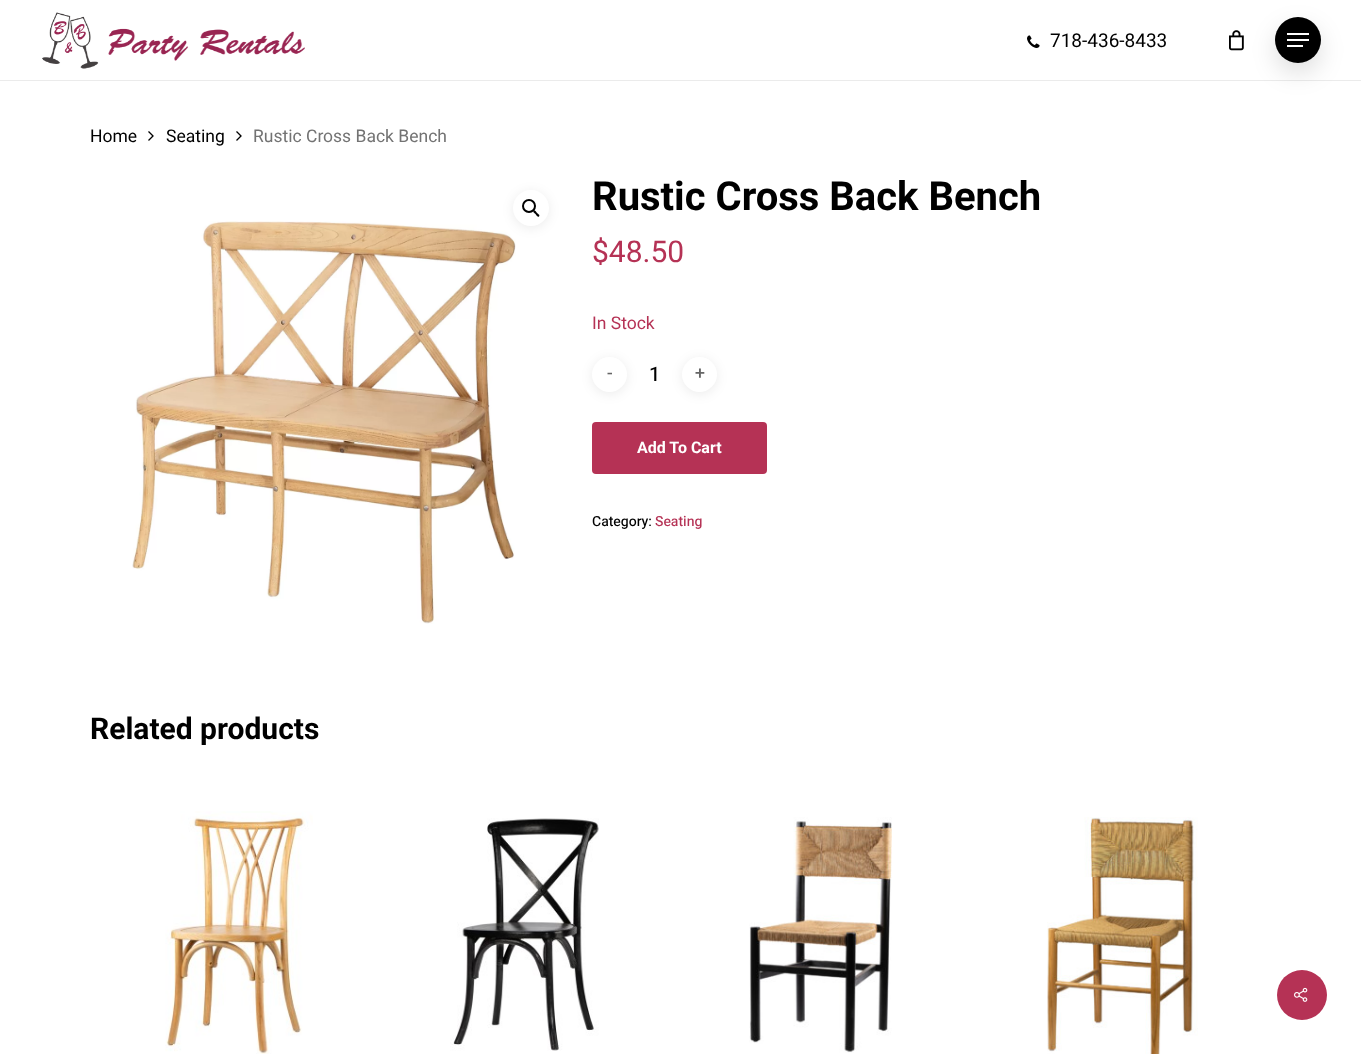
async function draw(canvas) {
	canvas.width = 1361;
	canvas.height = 1054;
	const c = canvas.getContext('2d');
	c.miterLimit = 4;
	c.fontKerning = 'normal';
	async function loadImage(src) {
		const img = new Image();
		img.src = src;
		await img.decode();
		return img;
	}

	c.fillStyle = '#fff';
	c.fillRect(0, 0, 1361, 1054);
	c.fillStyle = '#ebebeb';
	c.fillRect(0, 80, 1361, 1);
	c.drawImage(await loadImage('img1.png'), 42, 12, 263, 57);
	c.drawImage(await loadImage('img3.png'), 1229, 30, 15, 21);
	c.fillStyle = '#00000021';
	c.filter = 'blur(12.5px)';
	c.beginPath();
	c.roundRect(1275, 27, 46, 46, 23);
	c.fill();
	c.filter = 'none';
	c.fillStyle = '#000';
	c.beginPath();
	c.arc(1298, 40, 23, 0, 2 * Math.PI);
	c.fill();
	for (const [x, y, w, h, color] of [
		[1287, 33, 22, 2, '#fff'],
		[1287, 45, 16, 2, '#fff'],
		[1287, 39, 22, 2, '#fff'],
	]) {
		c.fillStyle = color;
		c.fillRect(x, y, w, h);
	}
	c.drawImage(await loadImage('img2.png'), 1027, 35, 13, 13);
	c.font = '19px Heebo';
	c.fillStyle = '#000';
	c.fillText('718-436-8433', 1050, 47);
	c.font = '17.5px Heebo';
	c.fillText('Home', 90, 142);
	c.drawImage(await loadImage('img4.png'), 148, 131, 6, 10);
	c.fillText('Seating', 166, 142);
	c.drawImage(await loadImage('img4.png'), 236, 131, 6, 10);
	c.fillStyle = '#737373';
	c.fillText('Rustic Cross Back Bench', 253, 142);
	c.drawImage(await loadImage('img5.png'), 132, 221, 384, 403);
	c.fillStyle = '#00000014';
	c.filter = 'blur(6px)';
	c.beginPath();
	c.roundRect(513, 192, 36, 36, 18);
	c.fill();
	c.filter = 'none';
	c.fillStyle = '#fff';
	c.beginPath();
	c.arc(531, 208, 18, 0, 2 * Math.PI);
	c.fill();
	c.beginPath();
	c.arc(529, 206, 6, 0, 2 * Math.PI);
	c.strokeStyle = '#000';
	c.lineWidth = 2;
	c.stroke();
	c.fillStyle = '#000';
	c.beginPath();
	c.moveTo(533.5, 210.5);
	c.bezierCurveTo(534.5, 209.5, 536.5, 212, 537, 213);
	c.bezierCurveTo(537.5, 213.5, 540.5, 215, 539, 216.5);
	c.bezierCurveTo(538, 217.5, 536, 215, 535.5, 214);
	c.bezierCurveTo(535, 213.5, 532.5, 212, 533.5, 210.5);
	c.closePath();
	c.fill();
	c.font = 'bold 40px Roboto';
	c.fillText('Rustic Cross Back Bench', 592, 210);
	c.font = '30px Heebo';
	c.fillStyle = '#b53255';
	c.fillText('$48.50', 592, 262);
	c.font = '17.5px Heebo';
	c.fillText('In Stock', 592, 329);
	c.fillStyle = '#00000014';
	c.filter = 'blur(6px)';
	c.beginPath();
	c.roundRect(592, 359, 35, 35, 17.5);
	c.fill();
	c.filter = 'none';
	c.fillStyle = '#fff';
	c.beginPath();
	c.arc(609.5, 374.5, 17.5, 0, 2 * Math.PI);
	c.fill();
	c.font = '500 18px Heebo';
	c.fillStyle = '#666';
	c.fillText('-', 607, 379);
	c.font = '500 20px Heebo';
	c.fillStyle = '#000';
	c.fillText('1', 649, 381);
	c.fillStyle = '#00000014';
	c.filter = 'blur(6px)';
	c.beginPath();
	c.roundRect(682, 359, 35, 35, 17.5);
	c.fill();
	c.filter = 'none';
	c.fillStyle = '#fff';
	c.beginPath();
	c.arc(699.5, 374.5, 17.5, 0, 2 * Math.PI);
	c.fill();
	c.font = '500 18px Heebo';
	c.fillStyle = '#666';
	c.fillText('+', 695, 379);
	c.fillStyle = '#b53255';
	c.beginPath();
	c.roundRect(592, 422, 175, 52, 4);
	c.fill();
	c.font = 'bold 16px Roboto';
	c.fillStyle = '#fff';
	c.fillText('Add To Cart', 637, 453);
	c.font = '500 14px Heebo';
	c.fillStyle = '#000';
	c.fillText('Category:', 592, 526);
	c.fillStyle = '#b53255';
	c.fillText('Seating', 655, 526);
	c.font = 'bold 30px Roboto';
	c.fillStyle = '#000';
	c.fillText('Related products', 90, 739);
	c.drawImage(await loadImage('img6.png'), 165, 811, 148, 243);
	c.drawImage(await loadImage('img7.png'), 450, 818, 149, 233);
	c.drawImage(await loadImage('img8.png'), 749, 817, 143, 236);
	c.drawImage(await loadImage('img9.png'), 1047, 817, 151, 237);
	c.fillStyle = '#b53255';
	c.beginPath();
	c.arc(1302, 995, 25, 0, 2 * Math.PI);
	c.fill();
	c.drawImage(await loadImage('img10.png'), 1294, 987, 14, 15);
}

draw(document.querySelector('canvas'));
